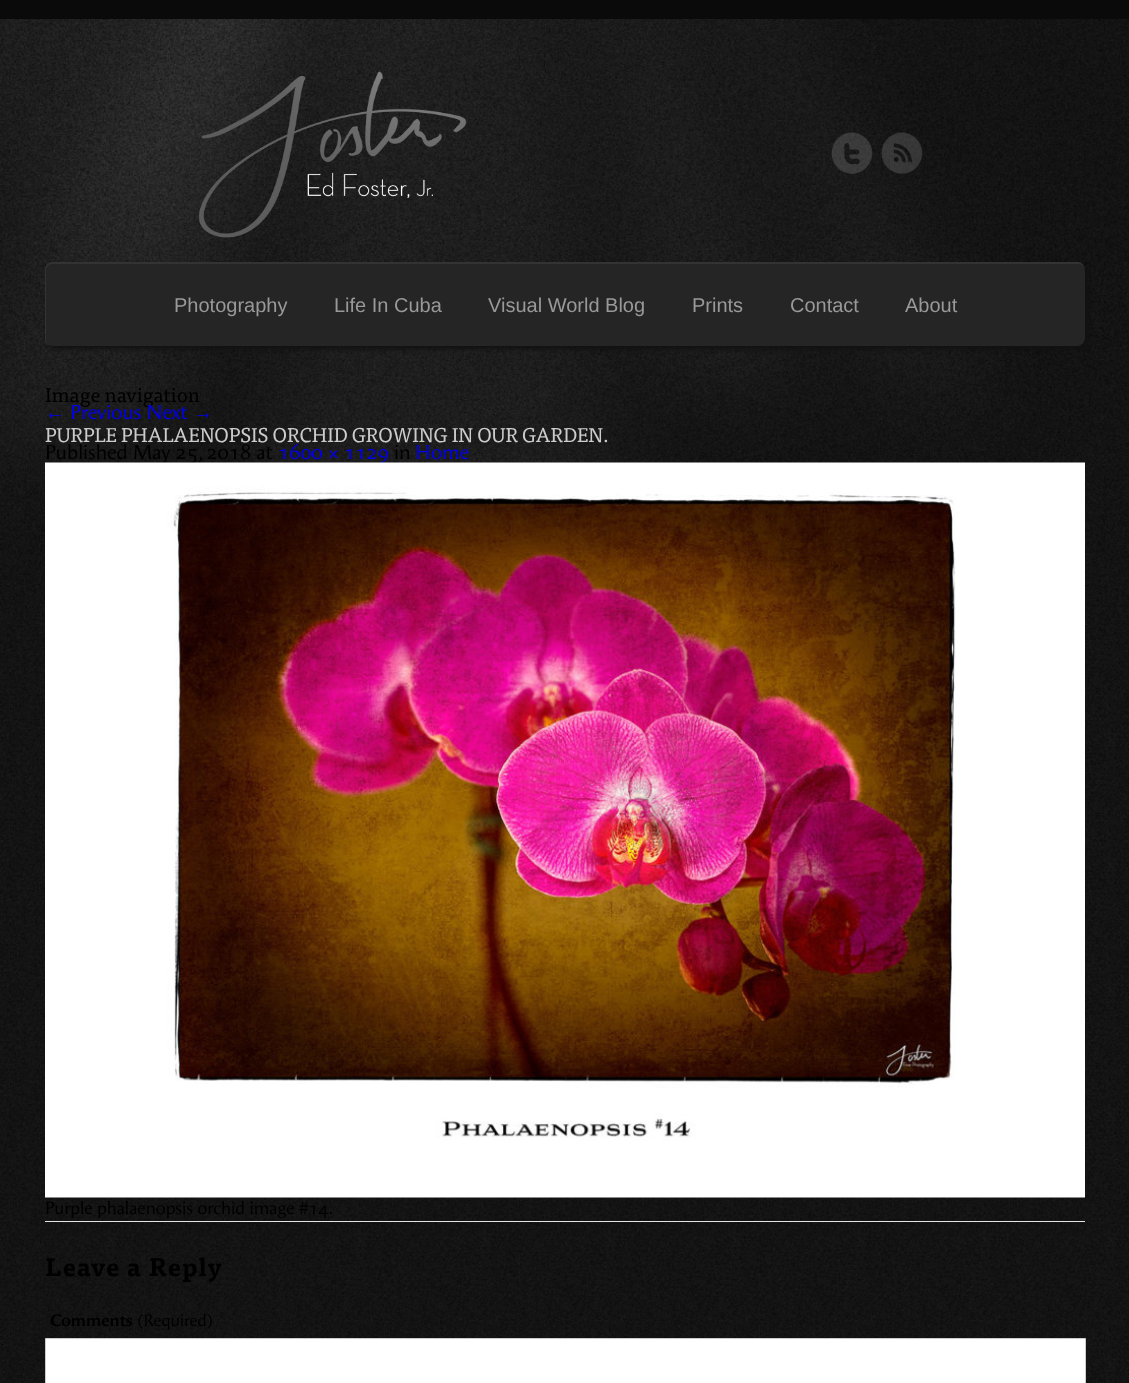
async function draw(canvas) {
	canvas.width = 1129;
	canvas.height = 1383;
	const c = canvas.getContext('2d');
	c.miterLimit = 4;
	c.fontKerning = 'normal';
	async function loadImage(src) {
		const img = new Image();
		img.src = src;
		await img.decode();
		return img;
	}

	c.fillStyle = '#fff';
	c.fillRect(0, 0, 1129, 1383);
	c.drawImage(await loadImage('img1.png'), 0, 19, 1129, 1364);
	c.fillStyle = '#0a0a0a';
	c.fillRect(0, 0, 1129, 19);
	c.drawImage(await loadImage('img2.png'), 831, 132, 42, 42);
	c.drawImage(await loadImage('img3.png'), 881, 132, 42, 42);
	c.drawImage(await loadImage('img4.png'), 198, 71, 269, 167);
	c.fillStyle = '#111';
	c.filter = 'blur(2px)';
	c.beginPath();
	c.roundRect(48, 265, 1040, 84, 8);
	c.fill();
	c.filter = 'none';
	c.fillStyle = '#252525';
	c.beginPath();
	c.roundRect(45, 263, 1040, 83, 8);
	c.fill();
	c.fillStyle = '#333';
	c.beginPath();
	c.moveTo(52, 262);
	c.lineTo(1078, 262);
	c.bezierCurveTo(1082, 262, 1085, 266, 1085, 270);
	c.lineTo(1085, 339);
	c.bezierCurveTo(1085, 343, 1082, 346, 1078, 346);
	c.lineTo(52, 346);
	c.bezierCurveTo(48, 346, 45, 343, 45, 339);
	c.lineTo(45, 270);
	c.bezierCurveTo(45, 266, 48, 262, 52, 262);
	c.closePath();
	c.moveTo(52, 264);
	c.lineTo(1078, 264);
	c.bezierCurveTo(1082, 264, 1085, 267, 1085, 270);
	c.lineTo(1085, 339);
	c.bezierCurveTo(1085, 343, 1082, 346, 1078, 346);
	c.lineTo(52, 346);
	c.bezierCurveTo(49, 346, 46, 343, 46, 339);
	c.lineTo(46, 270);
	c.bezierCurveTo(46, 267, 49, 264, 52, 264);
	c.closePath();
	c.fill('evenodd');
	c.font = '20px Liberation Sans';
	c.fillStyle = '#999';
	for (const [text, x, y] of [
		['Photography', 174, 312],
		['Life In Cuba', 334, 312],
		['Visual World Blog', 488, 312],
		['Prints', 692, 312],
		['Contact', 790, 312],
		['About', 905, 312],
	]) {
		c.fillText(text, x, y);
	}
	c.font = '20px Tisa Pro';
	c.fillStyle = '#000';
	c.fillText('Image navigation', 45, 402);
	c.font = '20px Liberation Sans';
	c.fillStyle = '#00e';
	c.fillText('←', 45, 419);
	c.font = '20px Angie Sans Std';
	c.fillText('Previous Next', 70, 419);
	c.font = '20px Liberation Sans';
	c.fillText('→', 193, 419);
	c.font = '20px Tisa Pro';
	c.fillStyle = '#ccc';
	c.fillText('PURPLE PHALAENOPSIS ORCHID GROWING IN OUR GARDEN.', 45, 442);
	c.font = '20px Angie Sans Std';
	c.fillStyle = '#000';
	c.fillText('Published May 25, 2018 at', 45, 459);
	c.fillStyle = '#00e';
	c.fillText('1600 × 1129', 278, 459);
	c.fillStyle = '#000';
	c.fillText('in', 394, 459);
	c.fillStyle = '#00e';
	c.fillText('Home', 415, 459);
	c.drawImage(await loadImage('img5.png'), 45, 462, 1040, 736);
	c.font = '17.5px Angie Sans Std';
	c.fillStyle = '#000';
	c.fillText('Purple phalaenopsis orchid image #14.', 45, 1214);
	c.fillStyle = '#e5e5e5';
	c.fillRect(45, 1221, 1040, 1);
	c.letterSpacing = '1.25px';
	c.font = 'bold 25px Tisa Pro';
	c.fillStyle = '#000';
	c.fillText('Leave a Reply', 45, 1276);
	c.letterSpacing = '0px';
	c.font = 'bold 16.5px Angie Sans Std';
	c.fillText('Comments', 50, 1326);
	c.font = '16.5px Angie Sans Std';
	c.fillText('(Required)', 137, 1326);
	c.fillStyle = '#fff';
	c.beginPath();
	c.rect(45.5, 1338.5, 1040, 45);
	c.fill();
	c.strokeStyle = '#ccc';
	c.stroke();
}

draw(document.querySelector('canvas'));
